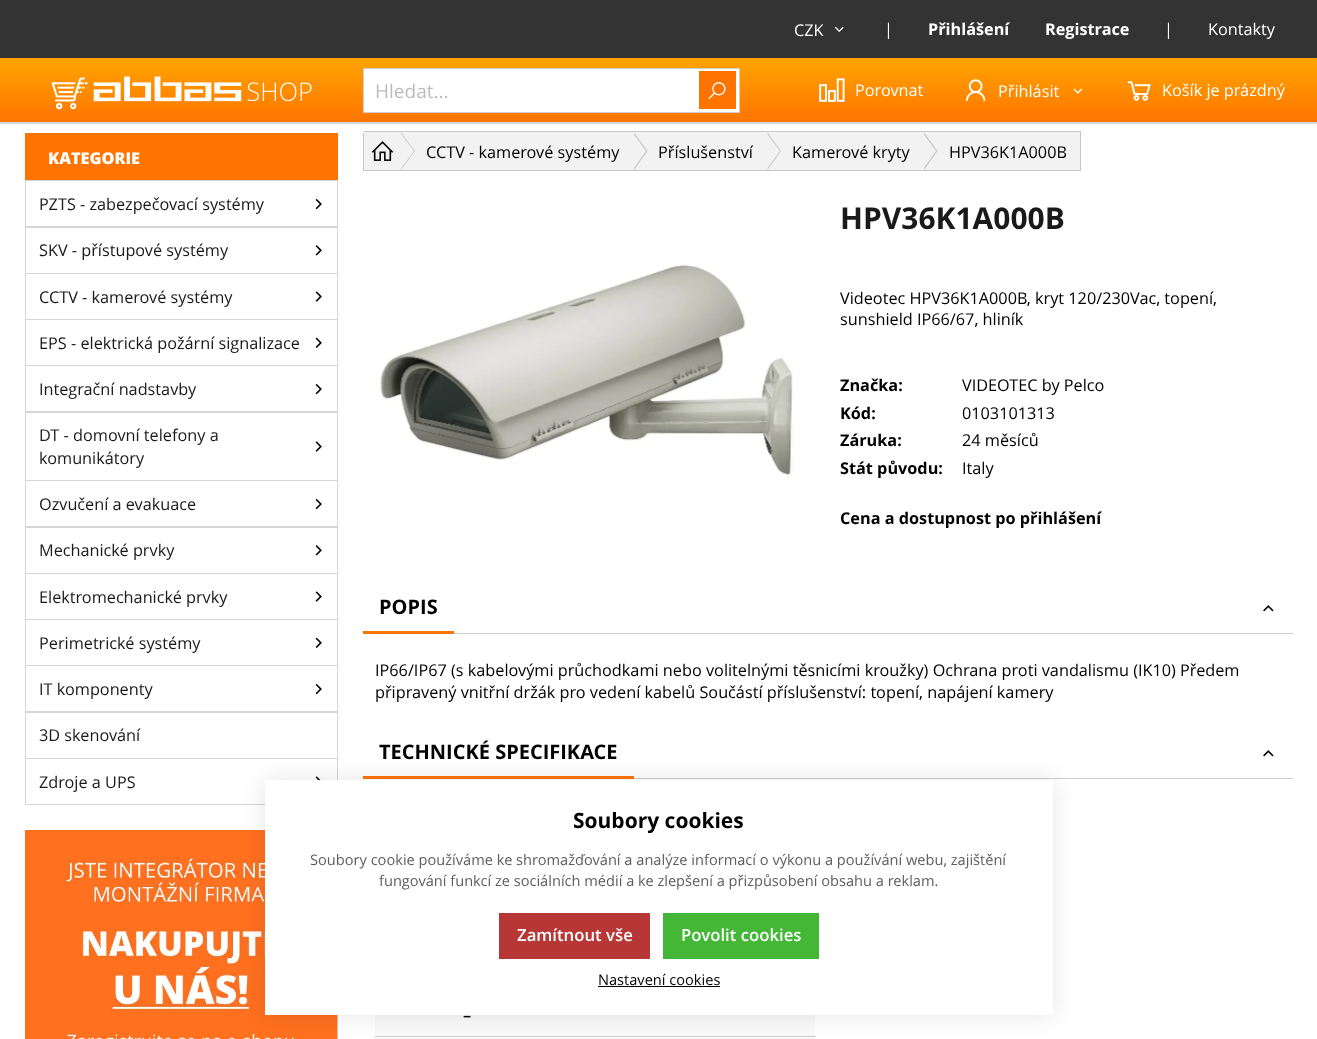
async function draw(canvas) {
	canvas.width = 1317;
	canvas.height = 1039;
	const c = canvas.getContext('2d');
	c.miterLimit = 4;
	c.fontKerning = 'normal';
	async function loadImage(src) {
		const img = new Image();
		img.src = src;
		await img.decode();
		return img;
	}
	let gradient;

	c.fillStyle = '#fff';
	c.fillRect(0, 0, 1317, 1039);
	gradient = c.createLinearGradient(659, 0, 659, 123);
	gradient.addColorStop(0, '#ffa200');
	gradient.addColorStop(0.5, '#ffa200');
	gradient.addColorStop(1, '#ff7400');
	c.fillStyle = gradient;
	c.fillRect(0, 58, 1317, 64);
	c.fillStyle = '#333';
	c.fillRect(0, 0, 1317, 58);
	c.font = '16.25px Open Sans';
	c.fillStyle = '#fff';
	c.fillText('CZK', 794, 36);
	c.drawImage(await loadImage('img1.png'), 834, 26, 10, 6);
	c.fillText('|', 884, 35);
	c.font = 'bold 16.25px Open Sans';
	c.fillText('Přihlášení', 928, 35);
	c.fillText('Registrace', 1045, 35);
	c.font = '16.25px Open Sans';
	c.fillText('|', 1164, 35);
	c.fillText('Kontakty', 1208, 35);
	c.drawImage(await loadImage('img2.png'), 51, 76, 261, 34);
	c.beginPath();
	c.rect(363.5, 68.5, 376, 44);
	c.fill();
	c.strokeStyle = '#cecece';
	c.stroke();
	c.font = '19px Open Sans';
	c.fillStyle = '#bcbcbc';
	c.fillText('Hledat...', 375, 98);
	c.fillStyle = '#ff7400';
	c.fillRect(699, 71, 37, 38);
	c.drawImage(await loadImage('img3.png'), 708, 82, 18, 17);
	c.drawImage(await loadImage('img4.png'), 819, 78, 26, 24);
	c.font = '16.25px Open Sans';
	c.fillStyle = '#fff';
	c.fillText('Porovnat', 855, 96);
	c.drawImage(await loadImage('img5.png'), 965, 79, 21, 22);
	c.fillText('Přihlásit', 998, 97);
	c.drawImage(await loadImage('img6.png'), 1073, 88, 10, 6);
	c.drawImage(await loadImage('img7.png'), 1127, 81, 24, 20);
	c.fillText('Košík je prázdný', 1162, 96);
	c.fillStyle = '#d6d6d6';
	c.beginPath();
	c.moveTo(0, 122);
	c.lineTo(0, 124);
	c.lineTo(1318, 124);
	c.lineTo(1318, 1);
	c.lineTo(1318, 122);
	c.closePath();
	c.fill();
	c.fillStyle = '#ff7400';
	c.fillRect(25, 133, 313, 47);
	c.font = '800 16.25px Open Sans';
	c.fillStyle = '#fff';
	c.fillText('KATEGORIE', 48, 164);
	c.strokeStyle = '#d6d6d6';
	c.strokeRect(25.5, 180.5, 312, 47);
	c.font = '16.25px Open Sans';
	c.fillStyle = '#1a1a1a';
	c.fillText('PZTS - zabezpečovací systémy', 39, 210);
	c.drawImage(await loadImage('img8.png'), 315, 198, 7, 12);
	c.strokeRect(25.5, 226.5, 312, 47);
	c.fillText('SKV - přístupové systémy', 39, 256);
	c.drawImage(await loadImage('img9.png'), 315, 245, 7, 11);
	c.strokeRect(25.5, 273.5, 312, 46);
	c.fillText('CCTV - kamerové systémy', 39, 303);
	c.drawImage(await loadImage('img10.png'), 315, 291, 7, 11);
	c.strokeRect(25.5, 319.5, 312, 46);
	c.fillText('EPS - elektrická požární signalizace', 39, 349);
	c.drawImage(await loadImage('img11.png'), 315, 337, 7, 11);
	c.strokeRect(25.5, 365.5, 312, 47);
	c.fillText('Integrační nadstavby', 39, 395);
	c.drawImage(await loadImage('img8.png'), 315, 383, 7, 12);
	c.strokeRect(25.5, 411.5, 312, 69);
	c.fillText('DT - domovní telefony a', 39, 441);
	c.fillText('komunikátory', 39, 464);
	c.drawImage(await loadImage('img10.png'), 315, 441, 7, 11);
	c.strokeRect(25.5, 480.5, 312, 47);
	c.fillText('Ozvučení a evakuace', 39, 510);
	c.drawImage(await loadImage('img8.png'), 315, 498, 7, 12);
	c.strokeRect(25.5, 526.5, 312, 47);
	c.fillText('Mechanické prvky', 39, 556);
	c.drawImage(await loadImage('img9.png'), 315, 545, 7, 11);
	c.strokeRect(25.5, 573.5, 312, 46);
	c.fillText('Elektromechanické prvky', 39, 603);
	c.drawImage(await loadImage('img10.png'), 315, 591, 7, 11);
	c.strokeRect(25.5, 619.5, 312, 46);
	c.fillText('Perimetrické systémy', 39, 649);
	c.drawImage(await loadImage('img11.png'), 315, 637, 7, 11);
	c.strokeRect(25.5, 665.5, 312, 47);
	c.fillText('IT komponenty', 39, 695);
	c.drawImage(await loadImage('img8.png'), 315, 683, 7, 12);
	c.strokeRect(25.5, 711.5, 312, 47);
	c.fillText('3D skenování', 39, 741);
	c.strokeRect(25.5, 758.5, 312, 46);
	c.fillText('Zdroje a UPS', 39, 788);
	c.drawImage(await loadImage('img12.png'), 315, 776, 6, 4);
	c.drawImage(await loadImage('img13.png'), 25, 830, 313, 209);
	for (const [x, y, w, h, color] of [
		[363, 133, 1, 38, '#c7c7c7'],
		[364, 132, 716, 38, '#f2f2f2'],
		[364, 131, 717, 1, '#c7c7c7'],
		[364, 170, 560, 1, '#c7c7c7'],
	]) {
		c.fillStyle = color;
		c.fillRect(x, y, w, h);
	}
	c.beginPath();
	c.moveTo(401, 170);
	c.lineTo(401, 132.5);
	c.lineTo(415, 151);
	c.closePath();
	c.fill();
	c.fillStyle = '#f2f2f2';
	c.beginPath();
	c.moveTo(400, 170);
	c.lineTo(400, 132.5);
	c.lineTo(414, 151);
	c.closePath();
	c.fill();
	c.drawImage(await loadImage('img14.png'), 371, 141, 23, 20);
	c.fillStyle = '#c7c7c7';
	c.beginPath();
	c.moveTo(634, 170);
	c.lineTo(634, 132.5);
	c.lineTo(647.5, 151);
	c.closePath();
	c.fill();
	c.fillStyle = '#f2f2f2';
	c.beginPath();
	c.moveTo(632.5, 170);
	c.lineTo(632.5, 132.5);
	c.lineTo(646, 151);
	c.closePath();
	c.fill();
	c.fillStyle = '#000';
	c.fillText('CCTV - kamerové systémy', 426, 158);
	c.fillStyle = '#c7c7c7';
	c.beginPath();
	c.moveTo(767.5, 170);
	c.lineTo(767.5, 132.5);
	c.lineTo(781, 151);
	c.closePath();
	c.fill();
	c.fillStyle = '#f2f2f2';
	c.beginPath();
	c.moveTo(766, 170);
	c.lineTo(766, 132.5);
	c.lineTo(780, 151);
	c.closePath();
	c.fill();
	c.fillStyle = '#000';
	c.fillText('Příslušenství', 658, 158);
	c.fillStyle = '#c7c7c7';
	c.beginPath();
	c.moveTo(924, 170);
	c.lineTo(924, 132.5);
	c.lineTo(937.5, 151);
	c.closePath();
	c.fill();
	c.fillStyle = '#f2f2f2';
	c.beginPath();
	c.moveTo(922.5, 170);
	c.lineTo(922.5, 132.5);
	c.lineTo(936, 151);
	c.closePath();
	c.fill();
	c.fillStyle = '#000';
	c.fillText('Kamerové kryty', 792, 158);
	c.fillStyle = '#c7c7c7';
	c.fillRect(1080, 131, 1, 40);
	c.fillRect(924, 170, 157, 1);
	c.fillStyle = '#000';
	c.fillText('HPV36K1A000B', 949, 158);
	c.drawImage(await loadImage('img15.png'), 380, 264, 415, 211);
	c.font = 'bold 30px Open Sans';
	c.fillStyle = '#1a1a1a';
	c.fillText('HPV36K1A000B', 840, 229);
	c.font = '16.25px Open Sans';
	c.fillStyle = '#000';
	c.fillText('Videotec HPV36K1A000B, kryt 120/230Vac, topení,', 840, 304);
	c.fillText('sunshield IP66/67, hliník', 840, 325);
	c.font = 'bold 16.25px Open Sans';
	c.fillText('Značka:', 840, 391);
	c.font = '16.25px Open Sans';
	c.fillText('VIDEOTEC by Pelco', 962, 391);
	c.font = 'bold 16.25px Open Sans';
	c.fillText('Kód:', 840, 419);
	c.font = '16.25px Open Sans';
	c.fillText('0103101313', 962, 419);
	c.font = 'bold 16.25px Open Sans';
	c.fillText('Záruka:', 840, 446);
	c.font = '16.25px Open Sans';
	c.fillText('24 měsíců', 962, 446);
	c.font = 'bold 16.25px Open Sans';
	c.fillText('Stát původu:', 840, 474);
	c.font = '16.25px Open Sans';
	c.fillText('Italy', 962, 474);
	c.font = 'bold 16.25px Open Sans';
	c.fillText('Cena a dostupnost po přihlášení', 840, 524);
	c.fillStyle = '#cecece';
	c.fillRect(454, 633, 839, 1);
	c.fillStyle = '#ff7400';
	c.fillRect(363, 631, 91, 3);
	c.font = 'bold 20px Open Sans';
	c.fillStyle = '#000';
	c.fillText('POPIS', 379, 614);
	c.drawImage(await loadImage('img16.png'), 1263, 605, 11, 7);
	c.font = '16.25px Open Sans';
	c.fillText('IP66/IP67 (s kabelovými průchodkami nebo volitelnými těsnicími kroužky) Ochrana proti vandalismu (IK10) Předem', 375, 676);
	c.fillText('připravený vnitřní držák pro vedení kabelů Součástí příslušenství: topení, napájení kamery', 375, 698);
	c.fillStyle = '#cecece';
	c.fillRect(634, 778, 659, 1);
	c.fillStyle = '#ff7400';
	c.fillRect(363, 776, 271, 3);
	c.font = 'bold 20px Open Sans';
	c.fillStyle = '#000';
	c.fillText('TECHNICKÉ SPECIFIKACE', 379, 759);
	c.drawImage(await loadImage('img16.png'), 1263, 750, 11, 7);
	c.fillStyle = '#f9f9f9';
	c.fillRect(375, 1015, 440, 21);
	c.font = '600 16.25px Open Sans';
	c.fillStyle = '#000';
	c.fillText('–', 463, 1021);
	c.fillStyle = '#ccc';
	c.fillRect(375, 1036, 441, 1);
	c.fillStyle = '#f9f9f9';
	c.fillRect(375, 1037, 440, 2);
	c.fillStyle = '#0000001a';
	c.filter = 'blur(12.5px)';
	c.beginPath();
	c.rect(265, 780, 788, 235);
	c.fill();
	c.filter = 'none';
	c.fillStyle = '#fff';
	c.fillRect(265, 780, 788, 235);
	c.font = 'bold 21px Open Sans';
	c.fillStyle = '#000';
	c.fillText('Soubory cookies', 573, 828);
	c.font = '14.6px Open Sans';
	c.fillStyle = '#5e5e5e';
	c.fillText('Soubory cookie používáme ke shromažďování a analýze informací o výkonu a používání webu, zajištění', 310, 865);
	c.fillText('fungování funkcí ze sociálních médií a ke zlepšení a přizpůsobení obsahu a reklam.', 379, 886);
	c.fillStyle = '#b73636';
	c.fillRect(499, 913, 151, 46);
	c.font = '600 16.75px Open Sans';
	c.fillStyle = '#fff';
	c.fillText('Zamítnout vše', 517, 941);
	c.fillStyle = '#44b736';
	c.fillRect(663, 913, 156, 46);
	c.fillStyle = '#fff';
	c.fillText('Povolit cookies', 681, 941);
	c.font = '14.6px Open Sans';
	c.fillStyle = '#000';
	c.fillText('Nastavení cookies', 598, 985);
	c.fillRect(598, 986, 122, 1);
}

draw(document.querySelector('canvas'));
